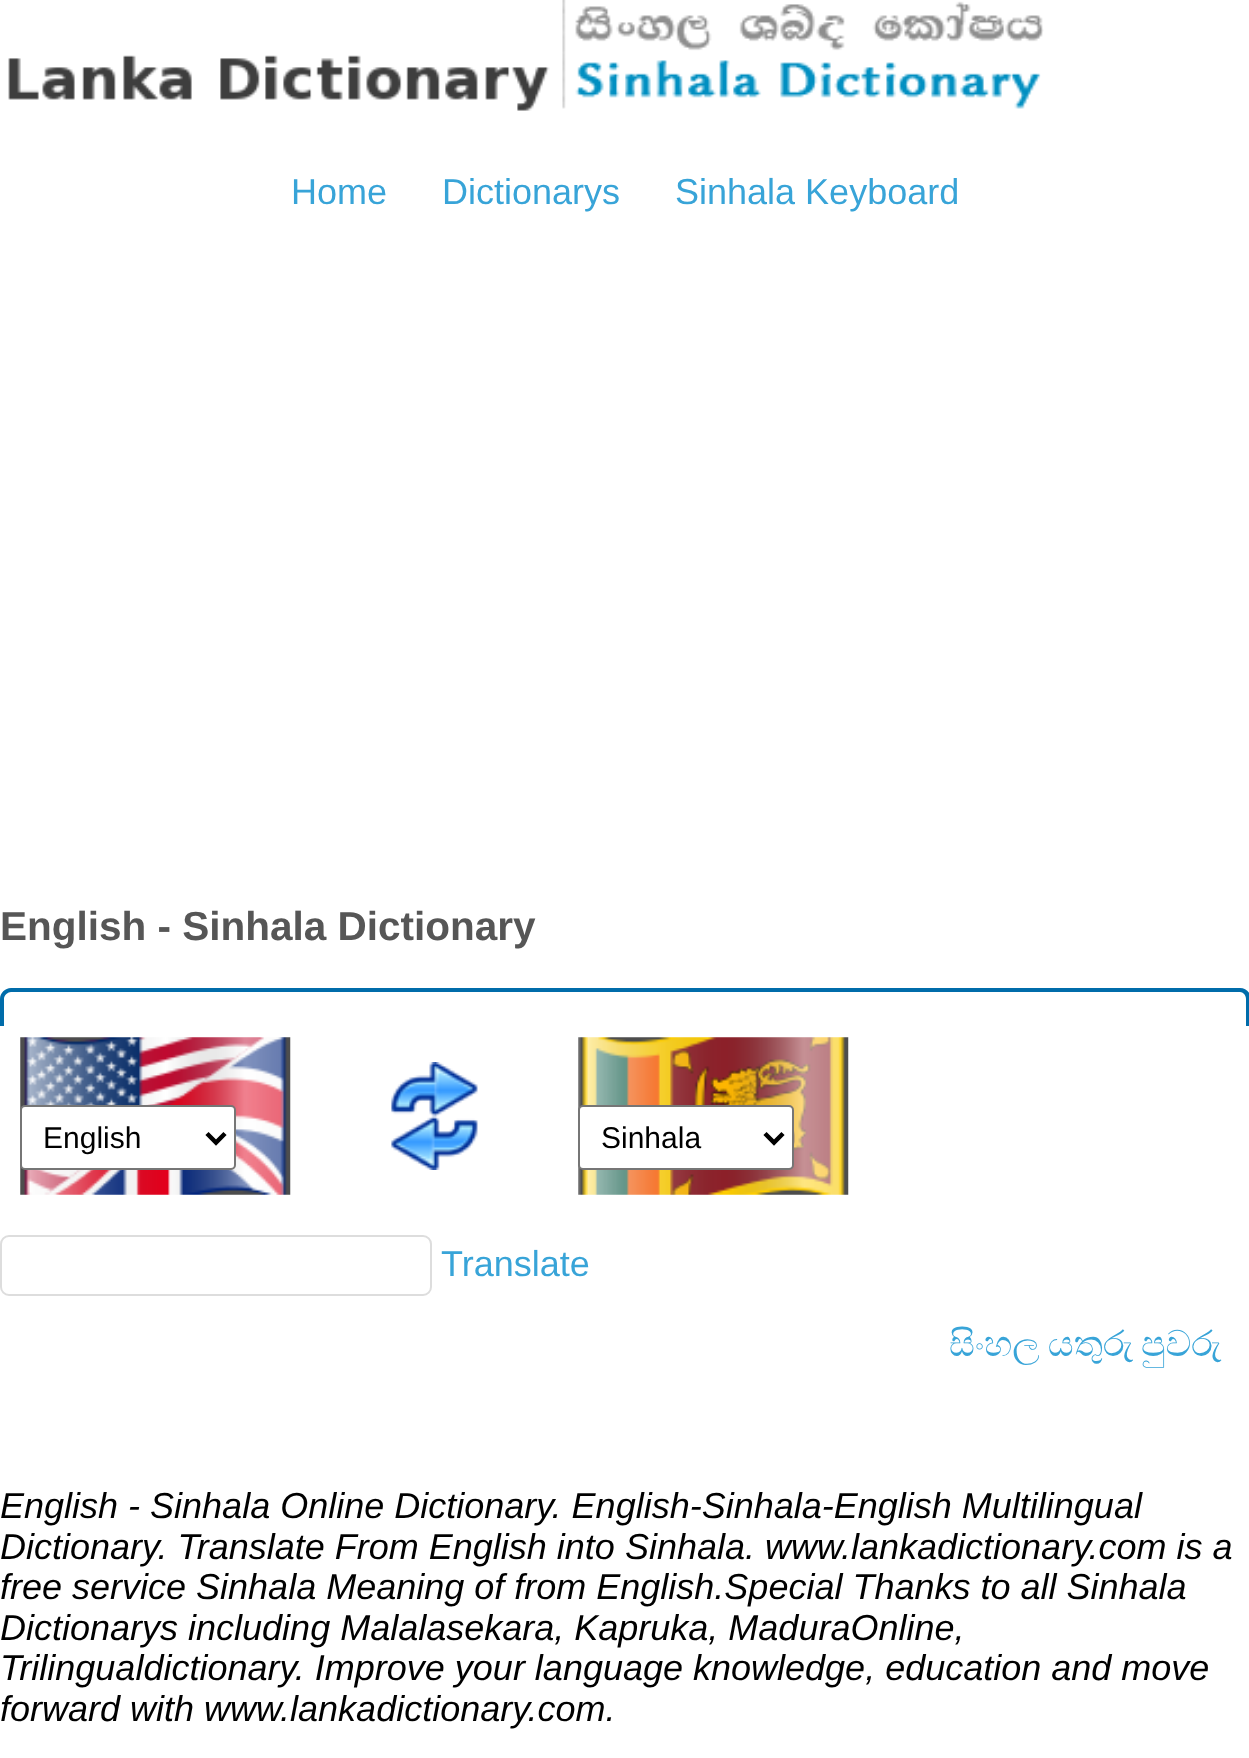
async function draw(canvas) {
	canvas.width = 1249;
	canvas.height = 1758;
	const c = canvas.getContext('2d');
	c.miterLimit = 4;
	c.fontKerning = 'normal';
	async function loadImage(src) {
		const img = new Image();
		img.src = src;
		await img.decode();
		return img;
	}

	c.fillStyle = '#fff';
	c.fillRect(0, 0, 1249, 1758);
	c.drawImage(await loadImage('img1.png'), 8, 0, 1036, 111);
	c.font = '36px Liberation Sans';
	c.fillStyle = '#38a4d8';
	for (const [text, x, y] of [
		['Home', 291, 204],
		['Dictionarys', 442, 204],
		['Sinhala Keyboard', 675, 204],
	]) {
		c.fillText(text, x, y);
	}
	c.font = 'bold 40.5px Liberation Sans';
	c.fillStyle = '#565656';
	c.fillText('English - Sinhala Dictionary', 0, 940);
	c.fillStyle = '#006caa';
	c.beginPath();
	c.moveTo(11, 988);
	c.lineTo(1240, 988);
	c.bezierCurveTo(1246, 988, 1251, 993, 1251, 999);
	c.lineTo(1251, 1026);
	c.lineTo(0, 1026);
	c.lineTo(0, 999);
	c.bezierCurveTo(0, 993, 5, 988, 11, 988);
	c.closePath();
	c.moveTo(11, 992);
	c.lineTo(1240, 992);
	c.bezierCurveTo(1243, 992, 1246, 995, 1246, 999);
	c.lineTo(1246, 1026);
	c.lineTo(4, 1026);
	c.lineTo(4, 999);
	c.bezierCurveTo(4, 995, 8, 992, 11, 992);
	c.closePath();
	c.fill('evenodd');
	c.drawImage(await loadImage('img2.png'), 20, 1037, 271, 158);
	c.fillStyle = '#fff';
	c.beginPath();
	c.roundRect(21, 1106, 214, 63, 4);
	c.fill();
	c.strokeStyle = '#767676';
	c.lineWidth = 2;
	c.stroke();
	c.beginPath();
	c.moveTo(207, 1133.5);
	c.lineTo(216, 1142.5);
	c.lineTo(225, 1133.5);
	c.strokeStyle = '#000';
	c.lineWidth = 4.5;
	c.stroke();
	c.font = '30px Liberation Sans';
	c.fillStyle = '#000';
	c.fillText('English', 43, 1148);
	c.drawImage(await loadImage('img3.png'), 391, 1062, 87, 108);
	c.drawImage(await loadImage('img4.png'), 578, 1037, 271, 158);
	c.fillStyle = '#fff';
	c.beginPath();
	c.roundRect(579, 1106, 214, 63, 4);
	c.fill();
	c.strokeStyle = '#767676';
	c.lineWidth = 2;
	c.stroke();
	c.beginPath();
	c.moveTo(765, 1133.5);
	c.lineTo(774, 1142.5);
	c.lineTo(783, 1133.5);
	c.strokeStyle = '#000';
	c.lineWidth = 4.5;
	c.stroke();
	c.fillStyle = '#000';
	c.fillText('Sinhala', 601, 1148);
	c.beginPath();
	c.roundRect(1, 1236, 430, 59, 8);
	c.strokeStyle = '#ddd';
	c.lineWidth = 2;
	c.stroke();
	c.font = '36px Liberation Sans';
	c.fillStyle = '#38a4d8';
	c.fillText('Translate', 441, 1276);
	c.wordSpacing = '-1px';
	c.font = '36px FreeSerif';
	c.fillText('සිංහල යතුරු පුවරු', 949, 1356);
	c.wordSpacing = '0px';
	c.font = 'italic 36px Liberation Sans';
	c.fillStyle = '#000';
	for (const [text, x, y] of [
		['English - Sinhala Online Dictionary. English-Sinhala-English Multilingual', 0, 1518],
		['Dictionary. Translate From English into Sinhala. www.lankadictionary.com is a', 0, 1559],
		['free service Sinhala Meaning of from English.Special Thanks to all Sinhala', 0, 1599],
		['Dictionarys including Malalasekara, Kapruka, MaduraOnline,', 0, 1640],
		['Trilingualdictionary. Improve your language knowledge, education and move', 0, 1680],
		['forward with www.lankadictionary.com.', 0, 1721],
	]) {
		c.fillText(text, x, y);
	}
}

draw(document.querySelector('canvas'));
